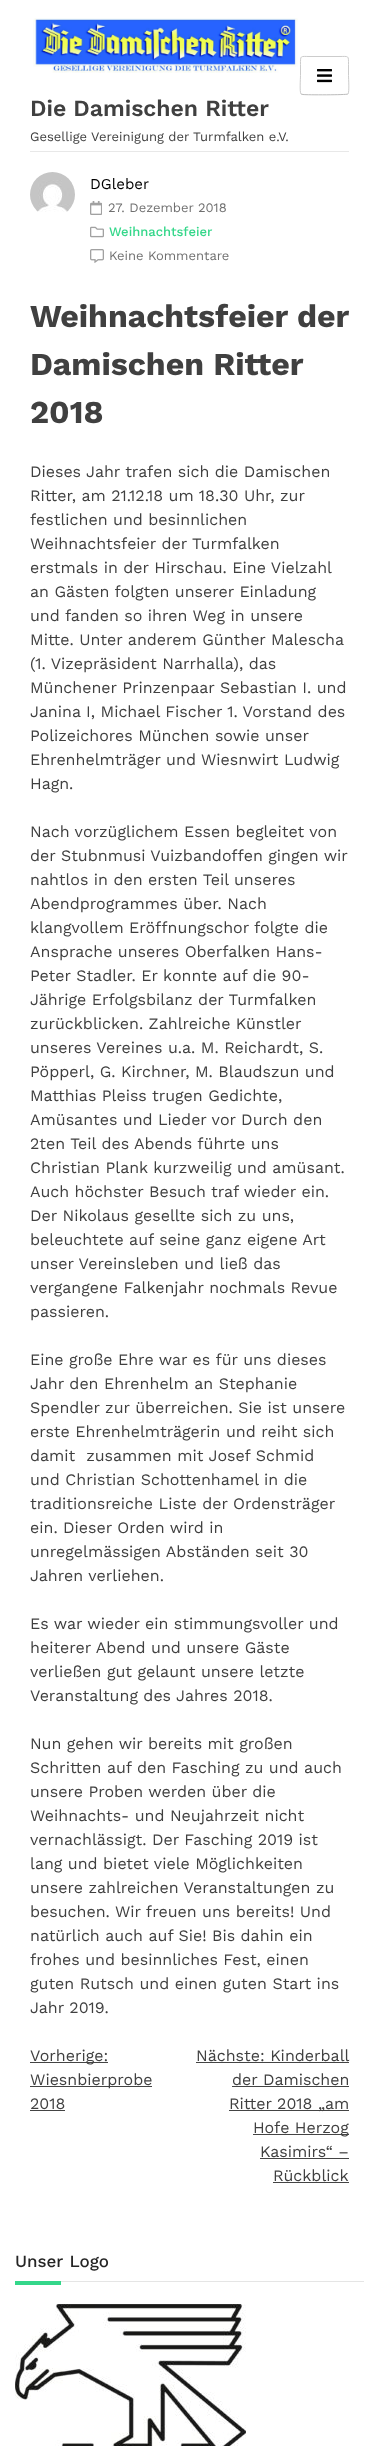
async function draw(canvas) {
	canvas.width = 379;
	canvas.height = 2446;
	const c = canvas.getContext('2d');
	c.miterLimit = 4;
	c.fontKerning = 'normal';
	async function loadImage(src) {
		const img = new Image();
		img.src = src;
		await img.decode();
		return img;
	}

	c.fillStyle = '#fff';
	c.fillRect(0, 0, 379, 2446);
	c.fillStyle = '#e8e8e8';
	c.fillRect(30, 151, 319, 1);
	c.beginPath();
	c.moveTo(348, 94);
	c.bezierCurveTo(346.5, 95, 307, 95, 303, 94.5);
	c.lineTo(301, 94);
	c.strokeStyle = '#bbb';
	c.stroke();
	c.beginPath();
	c.moveTo(301, 94);
	c.bezierCurveTo(299.5, 92, 300.5, 78.5, 300.5, 75.5);
	c.lineTo(300.5, 64.5);
	c.bezierCurveTo(300.5, 55, 300, 56.5, 310, 56.5);
	c.lineTo(339, 56.5);
	c.bezierCurveTo(349, 56.5, 348.5, 55, 348.5, 64.5);
	c.lineTo(348.5, 75.5);
	c.bezierCurveTo(348.5, 78.5, 349.5, 92, 348, 94);
	c.strokeStyle = '#ccc';
	c.stroke();
	c.drawImage(await loadImage('img1.png'), 317, 69, 15, 14);
	c.drawImage(await loadImage('img2.png'), 33, 18, 265, 55);
	c.font = '600 23px Work Sans';
	c.fillStyle = '#404040';
	c.fillText('Die Damischen Ritter', 30, 116);
	c.font = '13px Work Sans';
	c.fillText('Gesellige Vereinigung der Turmfalken e.V.', 30, 141);
	c.drawImage(await loadImage('img3.png'), 30, 172, 45, 40);
	c.font = '15px Work Sans';
	c.fillStyle = '#000';
	c.fillText('DGleber', 90, 189);
	c.drawImage(await loadImage('img4.png'), 90, 201, 12, 14);
	c.font = '13px Work Sans';
	c.fillStyle = '#707070';
	c.fillText('27. Dezember 2018', 108, 212);
	c.drawImage(await loadImage('img5.png'), 90, 226, 14, 12);
	c.font = '500 13px Work Sans';
	c.fillStyle = '#34d78a';
	c.fillText('Weihnachtsfeier', 109, 236);
	c.drawImage(await loadImage('img6.png'), 90, 249, 14, 14);
	c.font = '13px Work Sans';
	c.fillStyle = '#707070';
	c.fillText('Keine Kommentare', 109, 260);
	c.font = 'bold 32px Work Sans';
	c.fillStyle = '#404040';
	for (const [text, x, y] of [
		['Weihnachtsfeier der', 30, 327],
		['Damischen Ritter', 30, 375],
		['2018', 30, 423],
	]) {
		c.fillText(text, x, y);
	}
	c.font = '16px Work Sans';
	for (const [text, x, y] of [
		['Dieses Jahr trafen sich die Damischen', 30, 477],
		['Ritter, am 21.12.18 um 18.30 Uhr, zur', 30, 501],
		['festlichen und besinnlichen', 30, 525],
		['Weihnachtsfeier der Turmfalken', 30, 549],
		['erstmals in der Hirschau. Eine Vielzahl', 30, 573],
		['an Gästen folgten unserer Einladung', 30, 597],
		['und fanden so ihren Weg in unsere', 30, 621],
		['Mitte. Unter anderem Günther Malescha', 30, 645],
		['(1. Vizepräsident Narrhalla), das', 30, 669],
		['Münchener Prinzenpaar Sebastian I. und', 30, 693],
		['Janina I, Michael Fischer 1. Vorstand des', 30, 717],
		['Polizeichores München sowie unser', 30, 741],
		['Ehrenhelmträger und Wiesnwirt Ludwig', 30, 765],
		['Hagn.', 30, 789],
		['Nach vorzüglichem Essen begleitet von', 30, 837],
		['der Stubnmusi Vuizbandoffen gingen wir', 30, 861],
		['nahtlos in den ersten Teil unseres', 30, 885],
		['Abendprogrammes über. Nach', 30, 909],
		['klangvollem Eröffnungschor folgte die', 30, 933],
		['Ansprache unseres Oberfalken Hans-', 30, 957],
		['Peter Stadler. Er konnte auf die 90-', 30, 981],
		['Jährige Erfolgsbilanz der Turmfalken', 30, 1005],
		['zurückblicken. Zahlreiche Künstler', 30, 1029],
		['unseres Vereines u.a. M. Reichardt, S.', 30, 1053],
		['Pöpperl, G. Kirchner, M. Blaudszun und', 30, 1077],
		['Matthias Pleiss trugen Gedichte,', 30, 1101],
		['Amüsantes und Lieder vor Durch den', 30, 1125],
		['2ten Teil des Abends führte uns', 30, 1149],
		['Christian Plank kurzweilig und amüsant.', 30, 1173],
		['Auch höchster Besuch traf wieder ein.', 30, 1197],
		['Der Nikolaus gesellte sich zu uns,', 30, 1221],
		['beleuchtete auf seine ganz eigene Art', 30, 1245],
		['unser Vereinsleben und ließ das', 30, 1269],
		['vergangene Falkenjahr nochmals Revue', 30, 1293],
		['passieren.', 30, 1317],
		['Eine große Ehre war es für uns dieses', 30, 1365],
		['Jahr den Ehrenhelm an Stephanie', 30, 1389],
		['Spendler zur überreichen. Sie ist unsere', 30, 1413],
		['erste Ehrenhelmträgerin und reiht sich', 30, 1437],
		['damit  zusammen mit Josef Schmid', 30, 1461],
		['und Christian Schottenhamel in die', 30, 1485],
		['traditionsreiche Liste der Ordensträger', 30, 1509],
		['ein. Dieser Orden wird in', 30, 1533],
		['unregelmässigen Abständen seit 30', 30, 1557],
		['Jahren verliehen.', 30, 1581],
		['Es war wieder ein stimmungsvoller und', 30, 1629],
		['heiterer Abend und unsere Gäste', 30, 1653],
		['verließen gut gelaunt unsere letzte', 30, 1677],
		['Veranstaltung des Jahres 2018.', 30, 1701],
		['Nun gehen wir bereits mit großen', 30, 1749],
		['Schritten auf den Fasching zu und auch', 30, 1773],
		['unsere Proben werden über die', 30, 1797],
		['Weihnachts- und Neujahrzeit nicht', 30, 1821],
		['vernachlässigt. Der Fasching 2019 ist', 30, 1845],
		['lang und bietet viele Möglichkeiten', 30, 1869],
		['unsere zahlreichen Veranstaltungen zu', 30, 1893],
		['besuchen. Wir freuen uns bereits! Und', 30, 1917],
		['natürlich auch auf Sie! Bis dahin ein', 30, 1941],
		['frohes und besinnliches Fest, einen', 30, 1965],
		['guten Rutsch und einen guten Start ins', 30, 1989],
		['Jahr 2019.', 30, 2013],
	]) {
		c.fillText(text, x, y);
	}
	c.fillStyle = '#444';
	c.fillRect(30, 2062, 78, 1);
	c.fillStyle = '#404040';
	c.fillText('Vorherige:', 30, 2061);
	c.fillStyle = '#444';
	c.fillRect(30, 2086, 122, 1);
	c.fillStyle = '#404040';
	c.fillText('Wiesnbierprobe', 30, 2085);
	c.fillText('2018', 30, 2109);
	c.fillStyle = '#444';
	c.fillRect(30, 2110, 35, 1);
	c.fillStyle = '#404040';
	c.fillText('Nächste: Kinderball', 196, 2061);
	c.fillStyle = '#444';
	c.fillRect(196, 2062, 153, 1);
	c.fillStyle = '#404040';
	c.fillText('der Damischen', 232, 2085);
	c.fillStyle = '#444';
	c.fillRect(232, 2086, 117, 1);
	c.fillRect(229, 2110, 120, 1);
	c.fillStyle = '#404040';
	c.fillText('Ritter 2018 „am', 229, 2109);
	c.fillStyle = '#444';
	c.fillRect(253, 2134, 96, 1);
	c.fillStyle = '#404040';
	c.fillText('Hofe Herzog', 253, 2133);
	c.fillText('Kasimirs“ –', 260, 2157);
	c.fillStyle = '#444';
	c.fillRect(260, 2158, 89, 1);
	c.fillStyle = '#404040';
	c.fillText('Rückblick', 273, 2181);
	c.fillStyle = '#444';
	c.fillRect(273, 2182, 76, 1);
	c.fillStyle = '#e5e5e5';
	c.fillRect(61, 2281, 303, 1);
	c.wordSpacing = '1px';
	c.font = '500 17px Work Sans';
	c.fillStyle = '#252525';
	c.fillText('Unser Logo', 15, 2267);
	c.fillStyle = '#34d78a';
	c.fillRect(15, 2281, 46, 4);
	c.drawImage(await loadImage('img7.png'), 15, 2304, 231, 142);
}

draw(document.querySelector('canvas'));
